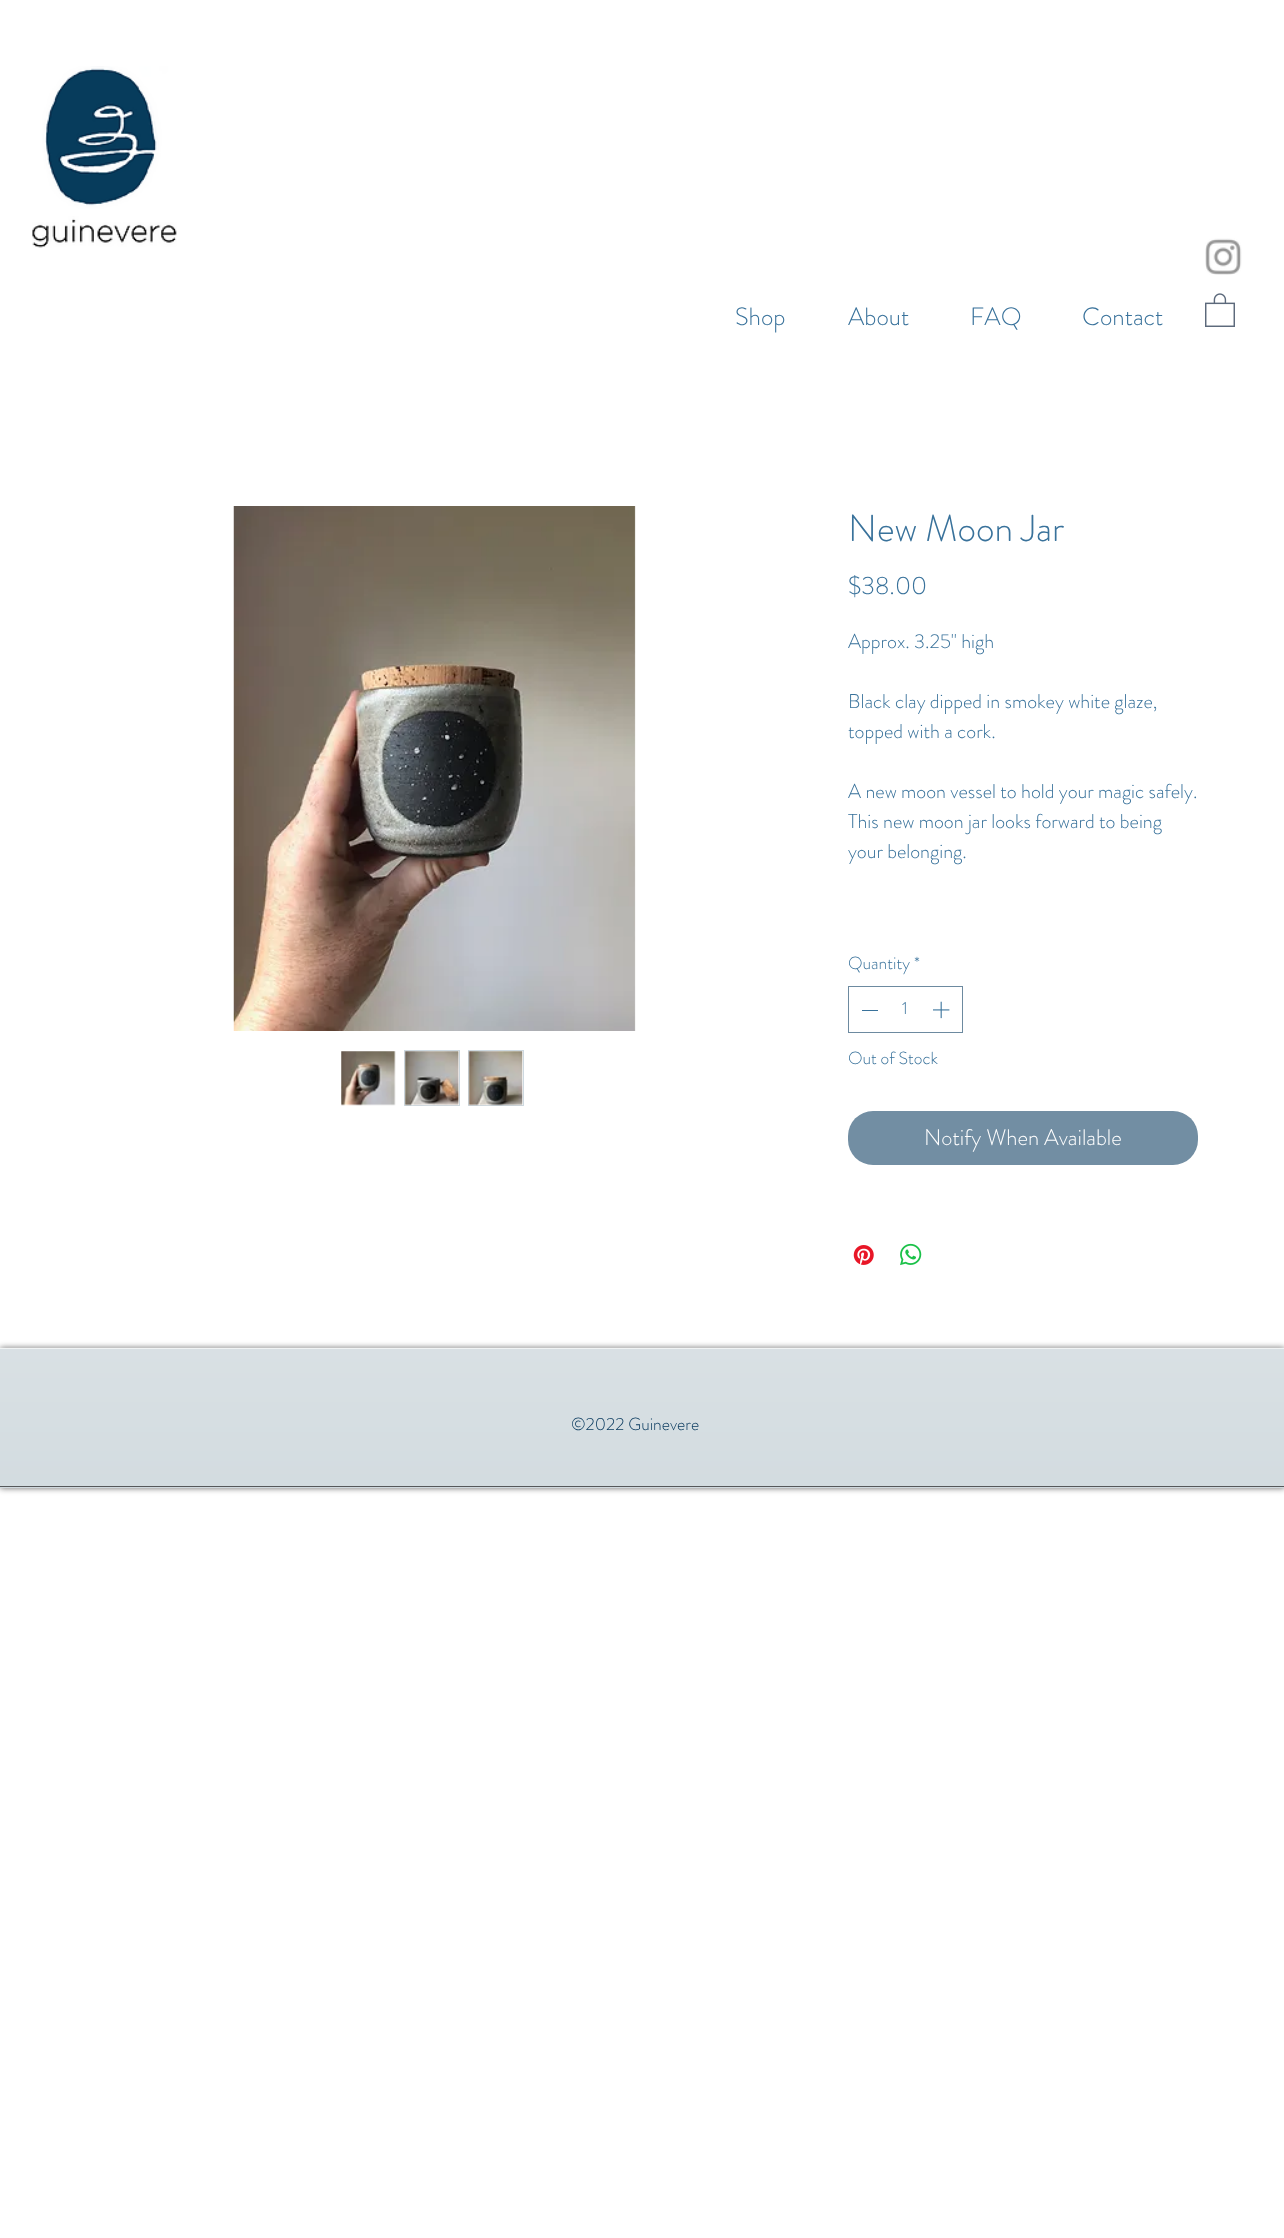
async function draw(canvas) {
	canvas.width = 1284;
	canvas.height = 2238;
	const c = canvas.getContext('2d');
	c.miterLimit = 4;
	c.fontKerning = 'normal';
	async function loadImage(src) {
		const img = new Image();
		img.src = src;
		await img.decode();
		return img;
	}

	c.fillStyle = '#fff';
	c.fillRect(0, 0, 1284, 2238);
	c.drawImage(await loadImage('img1.png'), 32, 66, 145, 182);
	c.drawImage(await loadImage('img2.png'), 1205, 238, 37, 37);
	c.font = '300 25px "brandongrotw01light"';
	c.fillStyle = '#39729b';
	for (const [text, x, y] of [
		['Shop', 735, 325],
		['About', 848, 325],
		['FAQ', 970, 325],
		['Contact', 1082, 325],
	]) {
		c.fillText(text, x, y);
	}
	c.drawImage(await loadImage('img3.png'), 1205, 293, 30, 34);
	c.drawImage(await loadImage('img4.png'), 233, 506, 403, 525);
	c.drawImage(await loadImage('img5.png'), 341, 1051, 55, 55);
	c.strokeStyle = '#ced9e0';
	c.strokeRect(404.5, 1050.5, 55, 55);
	c.drawImage(await loadImage('img6.png'), 404, 1051, 56, 55);
	c.strokeRect(468.5, 1050.5, 55, 55);
	c.drawImage(await loadImage('img7.png'), 468, 1051, 55, 55);
	c.font = '300 37.5px "brandongrotw01light"';
	c.fillText('New Moon Jar', 848, 541);
	c.font = '300 25px "brandongrotw01light"';
	c.fillText('$38.00', 848, 594);
	c.font = '300 20px "brandongrotw01light"';
	for (const [text, x, y] of [
		['Approx. 3.25" high', 848, 648],
		['Black clay dipped in smokey white glaze,', 848, 708],
		['topped with a cork.', 848, 738],
		['A new moon vessel to hold your magic safely.', 848, 798],
		['This new moon jar looks forward to being', 848, 828],
		['your belonging.', 848, 858],
	]) {
		c.fillText(text, x, y);
	}
	c.font = '300 17.5px "brandongrotw01light"';
	c.fillText('Quantity', 848, 969);
	c.fillText('*', 914, 969);
	c.strokeStyle = '#6d8aa0';
	c.strokeRect(848.5, 986.5, 114, 46);
	c.fillRect(862, 1010, 16, 1);
	c.fillText('1', 902, 1014);
	c.drawImage(await loadImage('img8.png'), 933, 1001, 17, 18);
	c.fillText('Out of Stock', 848, 1064);
	c.fillStyle = '#728ea3';
	c.beginPath();
	c.roundRect(848, 1111, 350, 54, 25);
	c.fill();
	c.font = '300 22.5px "brandongrotw01light"';
	c.fillStyle = '#fff';
	c.fillText('Notify When Available', 924, 1145);
	c.drawImage(await loadImage('img9.png'), 853, 1245, 21, 20);
	c.drawImage(await loadImage('img10.png'), 900, 1243, 22, 23);
	c.save();
	c.beginPath();
	c.moveTo(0, 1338);
	c.lineTo(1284, 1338);
	c.lineTo(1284, 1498);
	c.lineTo(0, 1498);
	c.closePath();
	c.moveTo(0, 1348);
	c.lineTo(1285, 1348);
	c.lineTo(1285, 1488);
	c.lineTo(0, 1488);
	c.closePath();
	c.clip('evenodd');
	c.fillStyle = '#00000099';
	c.filter = 'blur(3px)';
	c.beginPath();
	c.rect(0, 1348, 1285, 140);
	c.fill();
	c.filter = 'none';
	c.restore();
	c.fillStyle = '#103f5436';
	c.fillRect(0, 1349, 1284, 139);
	c.drawImage(await loadImage('img11.png'), 0, 1347, 1284, 141);
	c.fillStyle = '#55585a';
	c.fillRect(0, 1486, 1284, 1);
	c.fillStyle = '#f0f3f4';
	c.fillRect(0, 1348, 1284, 1);
	c.font = '300 17.5px "brandongrotw01light"';
	c.fillStyle = '#0c3c60';
	c.fillText('©2022 Guinevere', 571, 1430);
}

draw(document.querySelector('canvas'));
